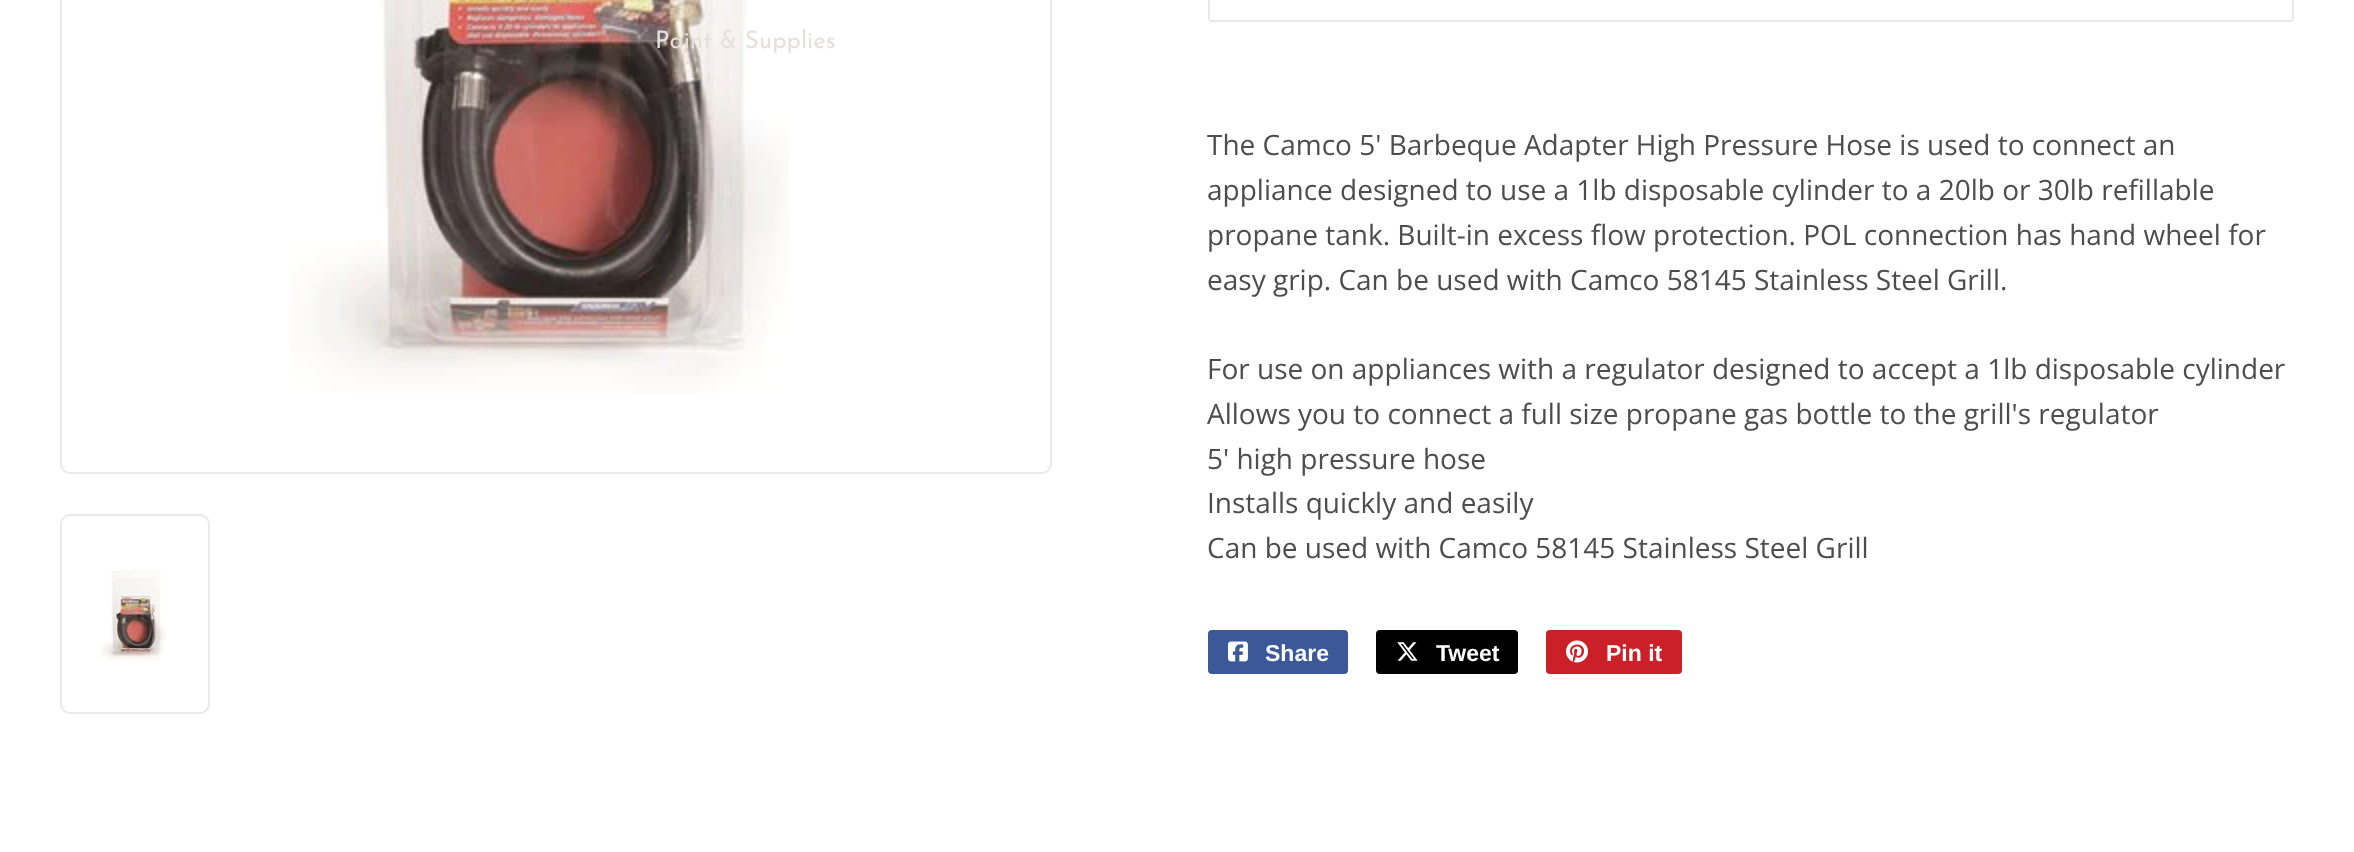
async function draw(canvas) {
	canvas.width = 2354;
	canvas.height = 852;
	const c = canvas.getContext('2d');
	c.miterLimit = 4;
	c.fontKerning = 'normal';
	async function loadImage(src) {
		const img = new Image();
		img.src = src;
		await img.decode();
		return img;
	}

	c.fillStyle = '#fff';
	c.fillRect(0, 0, 2354, 852);
	c.beginPath();
	c.roundRect(61, -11, 990, 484, 9);
	c.strokeStyle = '#eaeaea';
	c.lineWidth = 2;
	c.stroke();
	c.drawImage(await loadImage('img1.png'), 291, 0, 498, 393);
	c.font = '24.25px Josefin Sans';
	c.fillStyle = '#e5e0de';
	c.fillText('Paint & Supplies', 655, 48);
	c.beginPath();
	c.roundRect(61, 515, 148, 198, 9);
	c.stroke();
	c.drawImage(await loadImage('img2.png'), 100, 570, 67, 91);
	c.beginPath();
	c.roundRect(1209, -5, 1084, 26, 3);
	c.strokeStyle = '#e9e9e9';
	c.stroke();
	c.font = '28px Open Sans';
	c.fillStyle = '#4d4d4d';
	for (const [text, x, y] of [
		['The Camco 5\' Barbeque Adapter High Pressure Hose is used to connect an', 1207, 155],
		['appliance designed to use a 1lb disposable cylinder to a 20lb or 30lb refillable', 1207, 200],
		['propane tank. Built-in excess flow protection. POL connection has hand wheel for', 1207, 245],
		['easy grip. Can be used with Camco 58145 Stainless Steel Grill.', 1207, 290],
		['For use on appliances with a regulator designed to accept a 1lb disposable cylinder', 1207, 379],
		['Allows you to connect a full size propane gas bottle to the grill\'s regulator', 1207, 424],
		['5\' high pressure hose', 1207, 469],
		['Installs quickly and easily', 1207, 513],
		['Can be used with Camco 58145 Stainless Steel Grill', 1207, 558],
	]) {
		c.fillText(text, x, y);
	}
	c.fillStyle = '#3b5998';
	c.beginPath();
	c.roundRect(1208, 630, 140, 44, 4);
	c.fill();
	c.drawImage(await loadImage('img3.png'), 1228, 641, 20, 21);
	c.font = 'bold 23px Liberation Sans';
	c.fillStyle = '#fff';
	c.fillText('Share', 1265, 661);
	c.fillStyle = '#000';
	c.beginPath();
	c.roundRect(1376, 630, 142, 44, 4);
	c.fill();
	c.drawImage(await loadImage('img4.png'), 1397, 642, 21, 19);
	c.fillStyle = '#fff';
	c.fillText('Tweet', 1436, 661);
	c.fillStyle = '#cb2027';
	c.beginPath();
	c.roundRect(1546, 630, 136, 44, 4);
	c.fill();
	c.drawImage(await loadImage('img5.png'), 1566, 640, 22, 23);
	c.fillStyle = '#fff';
	c.fillText('Pin it', 1606, 661);
}

draw(document.querySelector('canvas'));
